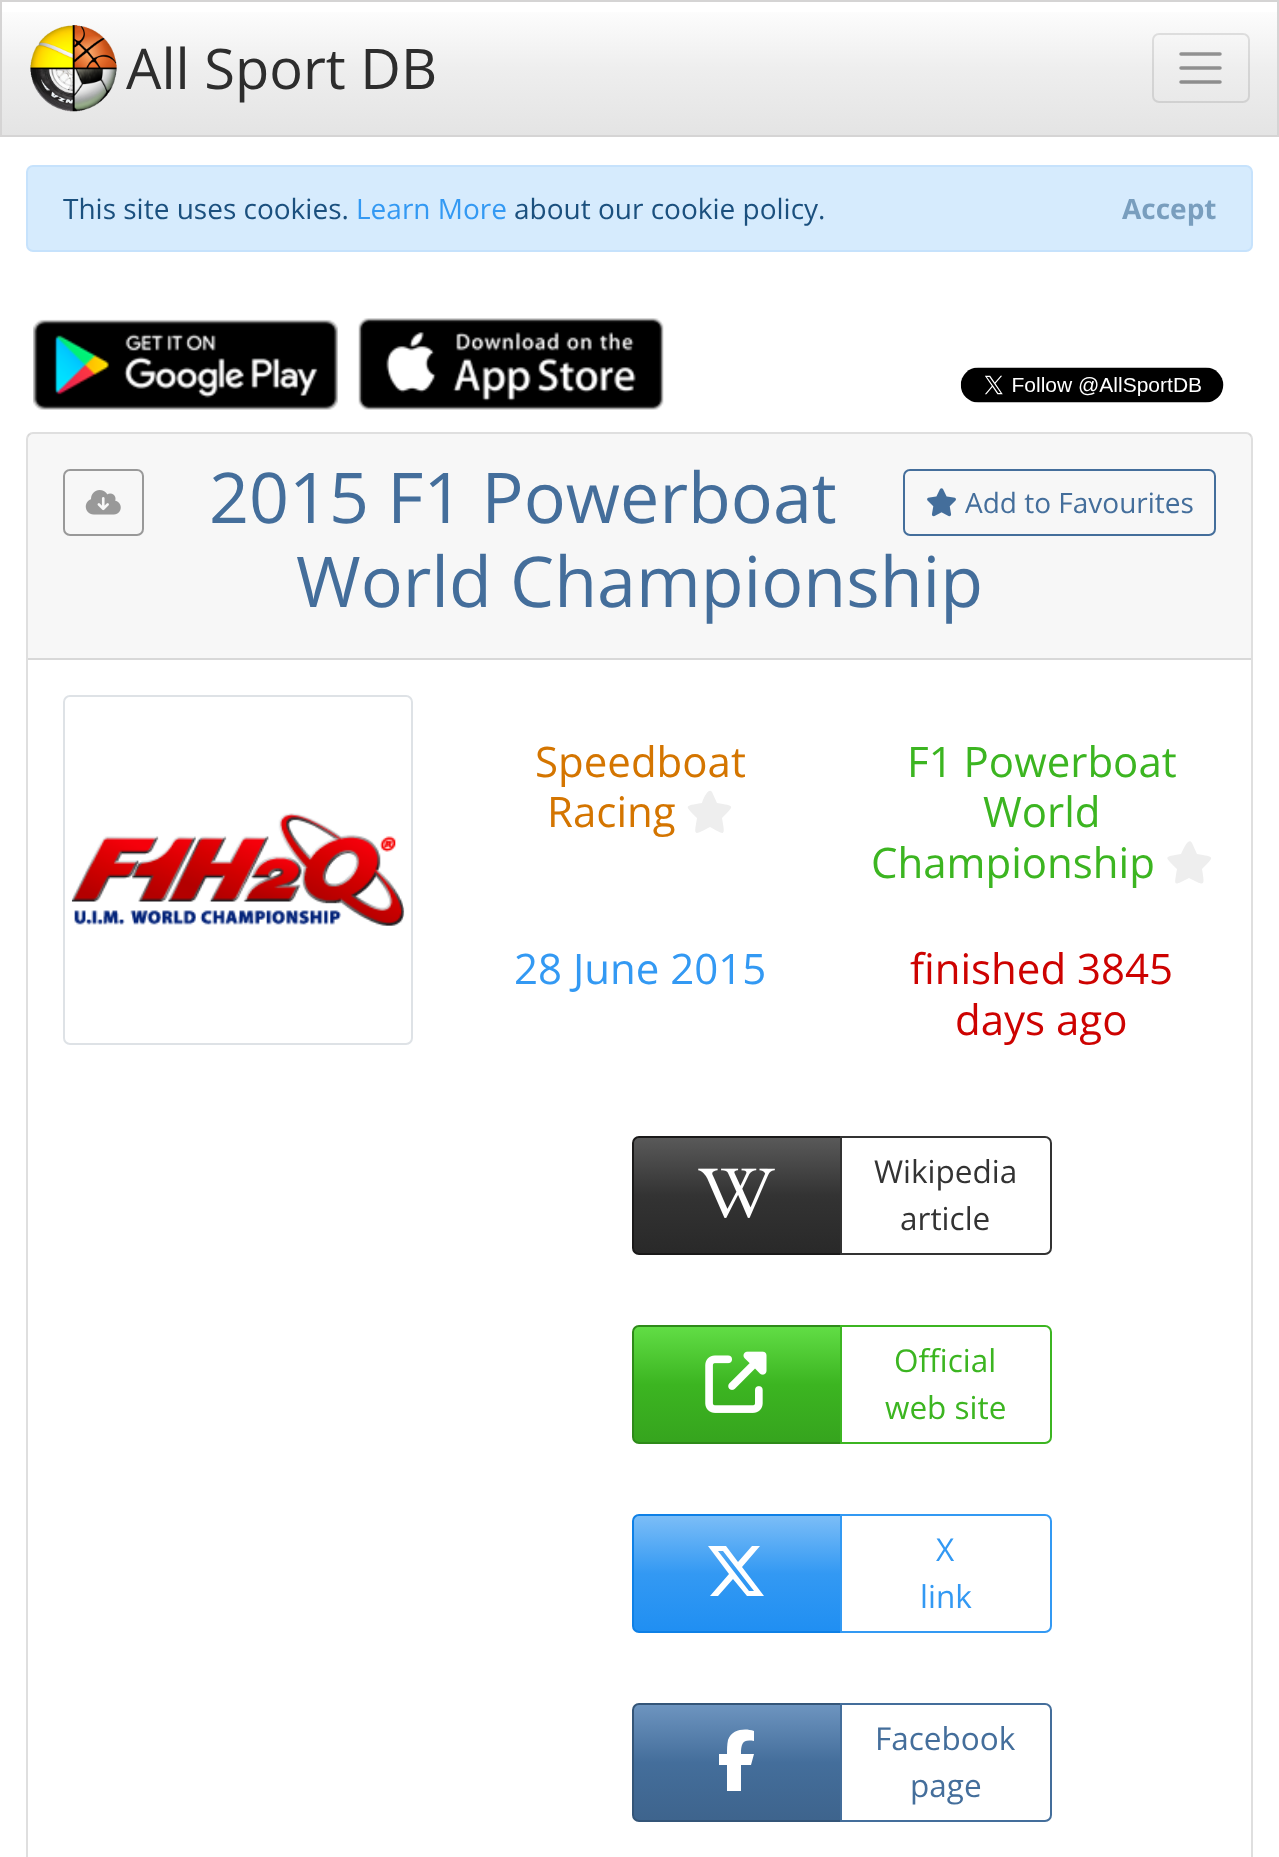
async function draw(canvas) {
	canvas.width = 1279;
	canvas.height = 1857;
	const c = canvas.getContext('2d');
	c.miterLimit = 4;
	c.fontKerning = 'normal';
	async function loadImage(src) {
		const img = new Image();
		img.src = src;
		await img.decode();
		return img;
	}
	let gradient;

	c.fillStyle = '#fff';
	c.fillRect(0, 0, 1279, 1857);
	gradient = c.createLinearGradient(640, 1.7, 640, 135);
	gradient.addColorStop(0, '#fff');
	gradient.addColorStop(0.5, '#eee');
	gradient.addColorStop(1, '#e4e4e4');
	c.fillStyle = gradient;
	c.fillRect(2, 12, 1275, 123);
	c.strokeStyle = '#d5d4d4';
	c.lineWidth = 2;
	c.strokeRect(1, 1, 1277, 135);
	c.drawImage(await loadImage('img1.png'), 30, 25, 87, 87);
	c.font = '56px Open Sans';
	c.fillStyle = '#2d2d2d';
	c.fillText('All Sport DB', 126, 89);
	c.beginPath();
	c.roundRect(1153, 34, 96, 68, 6);
	c.strokeStyle = '#0000001a';
	c.stroke();
	c.beginPath();
	c.moveTo(1181, 54);
	c.lineTo(1220, 54);
	c.moveTo(1181, 68);
	c.lineTo(1220, 68);
	c.moveTo(1181, 82);
	c.lineTo(1220, 82);
	c.strokeStyle = '#00000066';
	c.lineWidth = 3.5;
	c.lineCap = 'round';
	c.stroke();
	c.fillStyle = '#d6ebfd';
	c.beginPath();
	c.roundRect(27, 166, 1225, 85, 6);
	c.fill();
	c.strokeStyle = '#c6e2fc';
	c.lineWidth = 2;
	c.stroke();
	c.font = '28px Open Sans';
	c.fillStyle = '#1b507e';
	c.fillText('This site uses cookies.', 63, 219);
	c.fillStyle = '#3399f3';
	c.fillText('Learn More', 356, 219);
	c.fillStyle = '#1b507e';
	c.fillText('about our cookie policy.', 514, 219);
	c.font = 'bold 28px Open Sans';
	c.fillStyle = '#799ebe';
	c.fillText('Accept', 1122, 219);
	c.drawImage(await loadImage('img2.png'), 33, 319, 305, 91);
	c.drawImage(await loadImage('img3.png'), 358, 318, 306, 92);
	c.drawImage(await loadImage('img4.png'), 960, 367, 264, 36);
	c.beginPath();
	c.roundRect(27, 433, 1225, 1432, 6);
	c.strokeStyle = '#dfdfdf';
	c.stroke();
	c.fillStyle = '#00000008';
	c.fillRect(28, 434, 1223, 224);
	c.fillStyle = '#d8d8d8';
	c.fillRect(28, 658, 1223, 2);
	c.beginPath();
	c.roundRect(64, 470, 79, 65, 6);
	c.strokeStyle = '#999';
	c.stroke();
	c.drawImage(await loadImage('img5.png'), 85, 490, 36, 25);
	c.font = '70px Open Sans';
	c.fillStyle = '#446e9b';
	c.fillText('2015 F1 Powerboat', 209, 523);
	c.fillText('World Championship', 296, 607);
	c.beginPath();
	c.roundRect(904, 470, 311, 65, 6);
	c.strokeStyle = '#446e9b';
	c.stroke();
	c.drawImage(await loadImage('img6.png'), 927, 488, 29, 29);
	c.font = '28px Open Sans';
	c.fillText('Add to Favourites', 965, 513);
	c.beginPath();
	c.roundRect(64, 696, 348, 348, 6);
	c.strokeStyle = '#dee2e6';
	c.stroke();
	c.drawImage(await loadImage('img7.png'), 71, 813, 334, 113);
	c.font = '42px Open Sans';
	c.fillStyle = '#d47500';
	c.fillText('Speedboat', 535, 777);
	c.fillText('Racing', 547, 827);
	c.fillStyle = '#eee';
	c.beginPath();
	c.moveTo(712, 792);
	c.bezierCurveTo(708, 786, 702, 802, 702, 803);
	c.bezierCurveTo(684, 806, 684, 805, 697, 818);
	c.bezierCurveTo(694, 836, 693, 836, 710, 827);
	c.bezierCurveTo(726, 836, 725, 836, 722, 818);
	c.bezierCurveTo(735, 805, 735, 806, 717, 803);
	c.closePath();
	c.fill();
	c.fillStyle = '#3cb521';
	for (const [text, x, y] of [
		['F1 Powerboat', 907, 777],
		['World', 983, 827],
		['Championship', 871, 878],
	]) {
		c.fillText(text, x, y);
	}
	c.fillStyle = '#eee';
	c.beginPath();
	c.moveTo(1192, 843);
	c.bezierCurveTo(1188, 836, 1182, 853, 1181, 854);
	c.bezierCurveTo(1163, 857, 1164, 856, 1177, 869);
	c.bezierCurveTo(1174, 887, 1173, 886, 1189, 878);
	c.bezierCurveTo(1205, 886, 1205, 887, 1202, 869);
	c.bezierCurveTo(1215, 856, 1215, 857, 1197, 854);
	c.closePath();
	c.fill();
	c.fillStyle = '#3399f3';
	c.fillText('28 June 2015', 514, 984);
	c.fillStyle = '#cd0200';
	c.fillText('finished 3845', 910, 984);
	c.fillText('days ago', 955, 1035);
	gradient = c.createLinearGradient(737, 1138, 737, 1253);
	gradient.addColorStop(0, '#595959');
	gradient.addColorStop(0.5, '#333');
	gradient.addColorStop(1, '#292929');
	c.fillStyle = gradient;
	c.fillRect(634, 1138, 206, 115);
	c.beginPath();
	c.roundRect(633, 1137, 208, 117, [6, 0, 0, 6]);
	c.strokeStyle = '#1a1919';
	c.stroke();
	c.drawImage(await loadImage('img8.png'), 698, 1168, 77, 50);
	c.beginPath();
	c.roundRect(841, 1137, 210, 117, [0, 6, 6, 0]);
	c.strokeStyle = '#333';
	c.stroke();
	c.font = '31.5px Open Sans';
	c.fillStyle = '#333';
	c.fillText('Wikipedia', 874, 1183);
	c.fillText('article', 900, 1230);
	gradient = c.createLinearGradient(737, 1327, 737, 1442);
	gradient.addColorStop(0, '#61dd45');
	gradient.addColorStop(0.5, '#3cb521');
	gradient.addColorStop(1, '#36a41e');
	c.fillStyle = gradient;
	c.fillRect(634, 1327, 206, 115);
	c.beginPath();
	c.roundRect(633, 1326, 208, 117, [6, 0, 0, 6]);
	c.strokeStyle = '#2e8a19';
	c.stroke();
	c.drawImage(await loadImage('img9.png'), 705, 1351, 62, 62);
	c.beginPath();
	c.roundRect(841, 1326, 210, 117, [0, 6, 6, 0]);
	c.strokeStyle = '#3cb521';
	c.stroke();
	c.fillStyle = '#3cb521';
	c.fillText('Official', 894, 1372);
	c.fillText('web site', 885, 1419);
	gradient = c.createLinearGradient(737, 1516, 737, 1631);
	gradient.addColorStop(0, '#7bbdf7');
	gradient.addColorStop(0.5, '#3399f3');
	gradient.addColorStop(1, '#208ff2');
	c.fillStyle = gradient;
	c.fillRect(634, 1516, 206, 115);
	c.beginPath();
	c.roundRect(633, 1515, 208, 117, [6, 0, 0, 6]);
	c.strokeStyle = '#0e80e6';
	c.stroke();
	c.fillStyle = '#fff';
	c.beginPath();
	c.moveTo(752, 1546);
	c.lineTo(760, 1546);
	c.lineTo(752, 1546);
	c.lineTo(760, 1546);
	c.lineTo(742, 1567);
	c.lineTo(764, 1596);
	c.lineTo(747, 1596);
	c.lineTo(733, 1579);
	c.lineTo(718, 1596);
	c.lineTo(710, 1596);
	c.lineTo(729, 1574);
	c.lineTo(708, 1546);
	c.lineTo(726, 1546);
	c.lineTo(738, 1562);
	c.closePath();
	c.moveTo(749, 1591);
	c.lineTo(754, 1591);
	c.lineTo(749, 1591);
	c.lineTo(754, 1591);
	c.lineTo(723, 1551);
	c.lineTo(718, 1551);
	c.closePath();
	c.fill();
	c.beginPath();
	c.roundRect(841, 1515, 210, 117, [0, 6, 6, 0]);
	c.strokeStyle = '#3399f3';
	c.stroke();
	c.fillStyle = '#3399f3';
	c.fillText('X', 936, 1561);
	c.fillText('link', 920, 1608);
	gradient = c.createLinearGradient(737, 1705, 737, 1820);
	gradient.addColorStop(0, '#6d94bf');
	gradient.addColorStop(0.5, '#446e9b');
	gradient.addColorStop(1, '#3e648d');
	c.fillStyle = gradient;
	c.fillRect(634, 1705, 206, 115);
	c.beginPath();
	c.roundRect(633, 1704, 208, 117, [6, 0, 0, 6]);
	c.strokeStyle = '#345578';
	c.stroke();
	c.fillStyle = '#fff';
	c.beginPath();
	c.moveTo(727, 1765);
	c.lineTo(727, 1791);
	c.lineTo(727, 1765);
	c.lineTo(727, 1791);
	c.lineTo(741, 1791);
	c.lineTo(741, 1765);
	c.lineTo(751, 1765);
	c.lineTo(754, 1754);
	c.lineTo(741, 1754);
	c.bezierCurveTo(741, 1743, 743, 1739, 754, 1741);
	c.lineTo(754, 1731);
	c.bezierCurveTo(745, 1728, 732, 1729, 728, 1740);
	c.bezierCurveTo(727, 1745, 727, 1749, 727, 1754);
	c.lineTo(719, 1754);
	c.lineTo(719, 1765);
	c.closePath();
	c.fill();
	c.beginPath();
	c.roundRect(841, 1704, 210, 117, [0, 6, 6, 0]);
	c.strokeStyle = '#446e9b';
	c.stroke();
	c.fillStyle = '#446e9b';
	c.fillText('Facebook', 875, 1750);
	c.fillText('page', 910, 1797);
}

draw(document.querySelector('canvas'));
